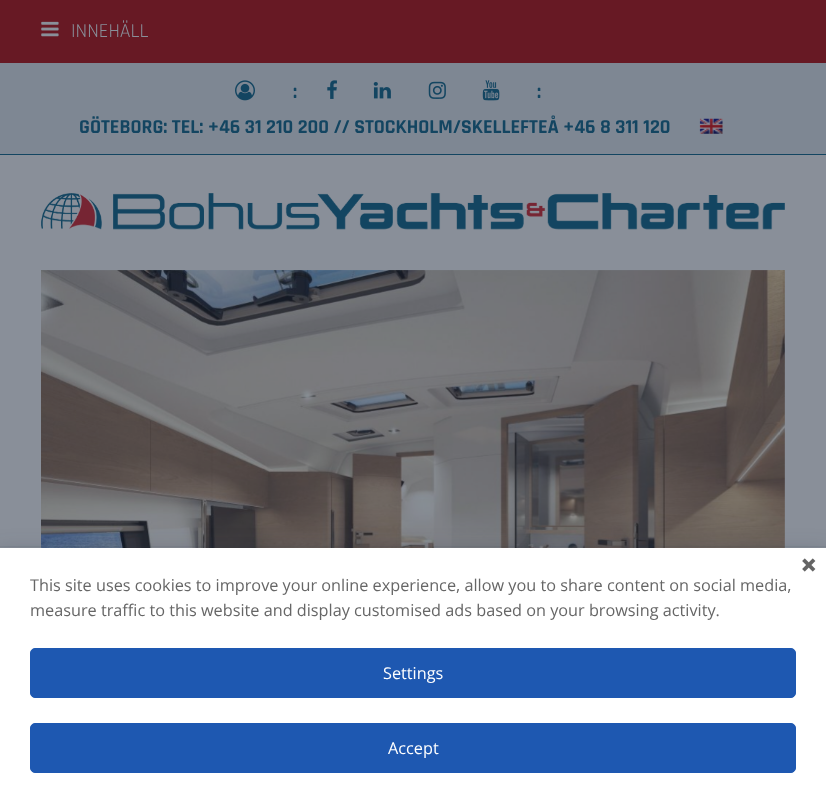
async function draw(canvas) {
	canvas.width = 826;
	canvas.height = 797;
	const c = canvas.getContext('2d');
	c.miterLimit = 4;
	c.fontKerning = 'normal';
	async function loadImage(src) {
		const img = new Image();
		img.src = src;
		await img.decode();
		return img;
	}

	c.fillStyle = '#898f99';
	c.fillRect(0, 0, 826, 797);
	c.fillStyle = '#671924';
	c.fillRect(0, 0, 826, 63);
	c.drawImage(await loadImage('img1.png'), 41, 21, 18, 16);
	c.font = '20px Rajdhani';
	c.fillStyle = '#898f99';
	c.fillText('INNEHÄLL', 71, 37);
	c.fillStyle = '#7e8793';
	c.fillRect(0, 63, 826, 91);
	c.fillStyle = '#134561';
	c.fillRect(0, 154, 826, 1);
	c.drawImage(await loadImage('img2.png'), 235, 80, 20, 21);
	c.font = 'bold 20px Rajdhani';
	c.fillText(':', 293, 98);
	c.drawImage(await loadImage('img3.png'), 327, 80, 10, 19);
	c.drawImage(await loadImage('img4.png'), 373, 82, 18, 17);
	c.drawImage(await loadImage('img5.png'), 428, 81, 18, 18);
	c.drawImage(await loadImage('img6.png'), 482, 80, 18, 21);
	c.fillText(':', 537, 98);
	c.fillText('GÖTEBORG: TEL: +46 31 210 200 // STOCKHOLM/SKELLEFTEÅ +46 8 311 120', 79, 133);
	c.drawImage(await loadImage('img7.png'), 699, 118, 24, 16);
	c.drawImage(await loadImage('img8.png'), 41, 193, 744, 37);
	c.drawImage(await loadImage('img9.png'), 41, 270, 744, 278);
	c.fillStyle = '#242f424f';
	c.filter = 'blur(12.5px)';
	c.beginPath();
	c.rect(-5, 555, 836, 235);
	c.fill();
	c.filter = 'none';
	c.strokeStyle = '#242f4214';
	c.strokeRect(-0.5, 546.5, 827, 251);
	c.fillStyle = '#fff';
	c.fillRect(0, 548, 826, 249);
	c.font = '16.25px Open Sans';
	c.fillStyle = '#666';
	c.fillText('This site uses cookies to improve your online experience, allow you to share content on social media,', 30, 591);
	c.fillText('measure traffic to this website and display customised ads based on your browsing activity.', 30, 616);
	c.drawImage(await loadImage('img10.png'), 802, 558, 14, 14);
	c.fillStyle = '#1e58b1';
	c.beginPath();
	c.roundRect(30.5, 648.5, 765, 49, 4.5);
	c.fill();
	c.strokeStyle = '#1e58b1';
	c.stroke();
	c.fillStyle = '#fff';
	c.fillText('Settings', 383, 679);
	c.fillStyle = '#1e58b1';
	c.beginPath();
	c.roundRect(30.5, 723.5, 765, 49, 4.5);
	c.fill();
	c.stroke();
	c.fillStyle = '#fff';
	c.fillText('Accept', 388, 754);
}

draw(document.querySelector('canvas'));
